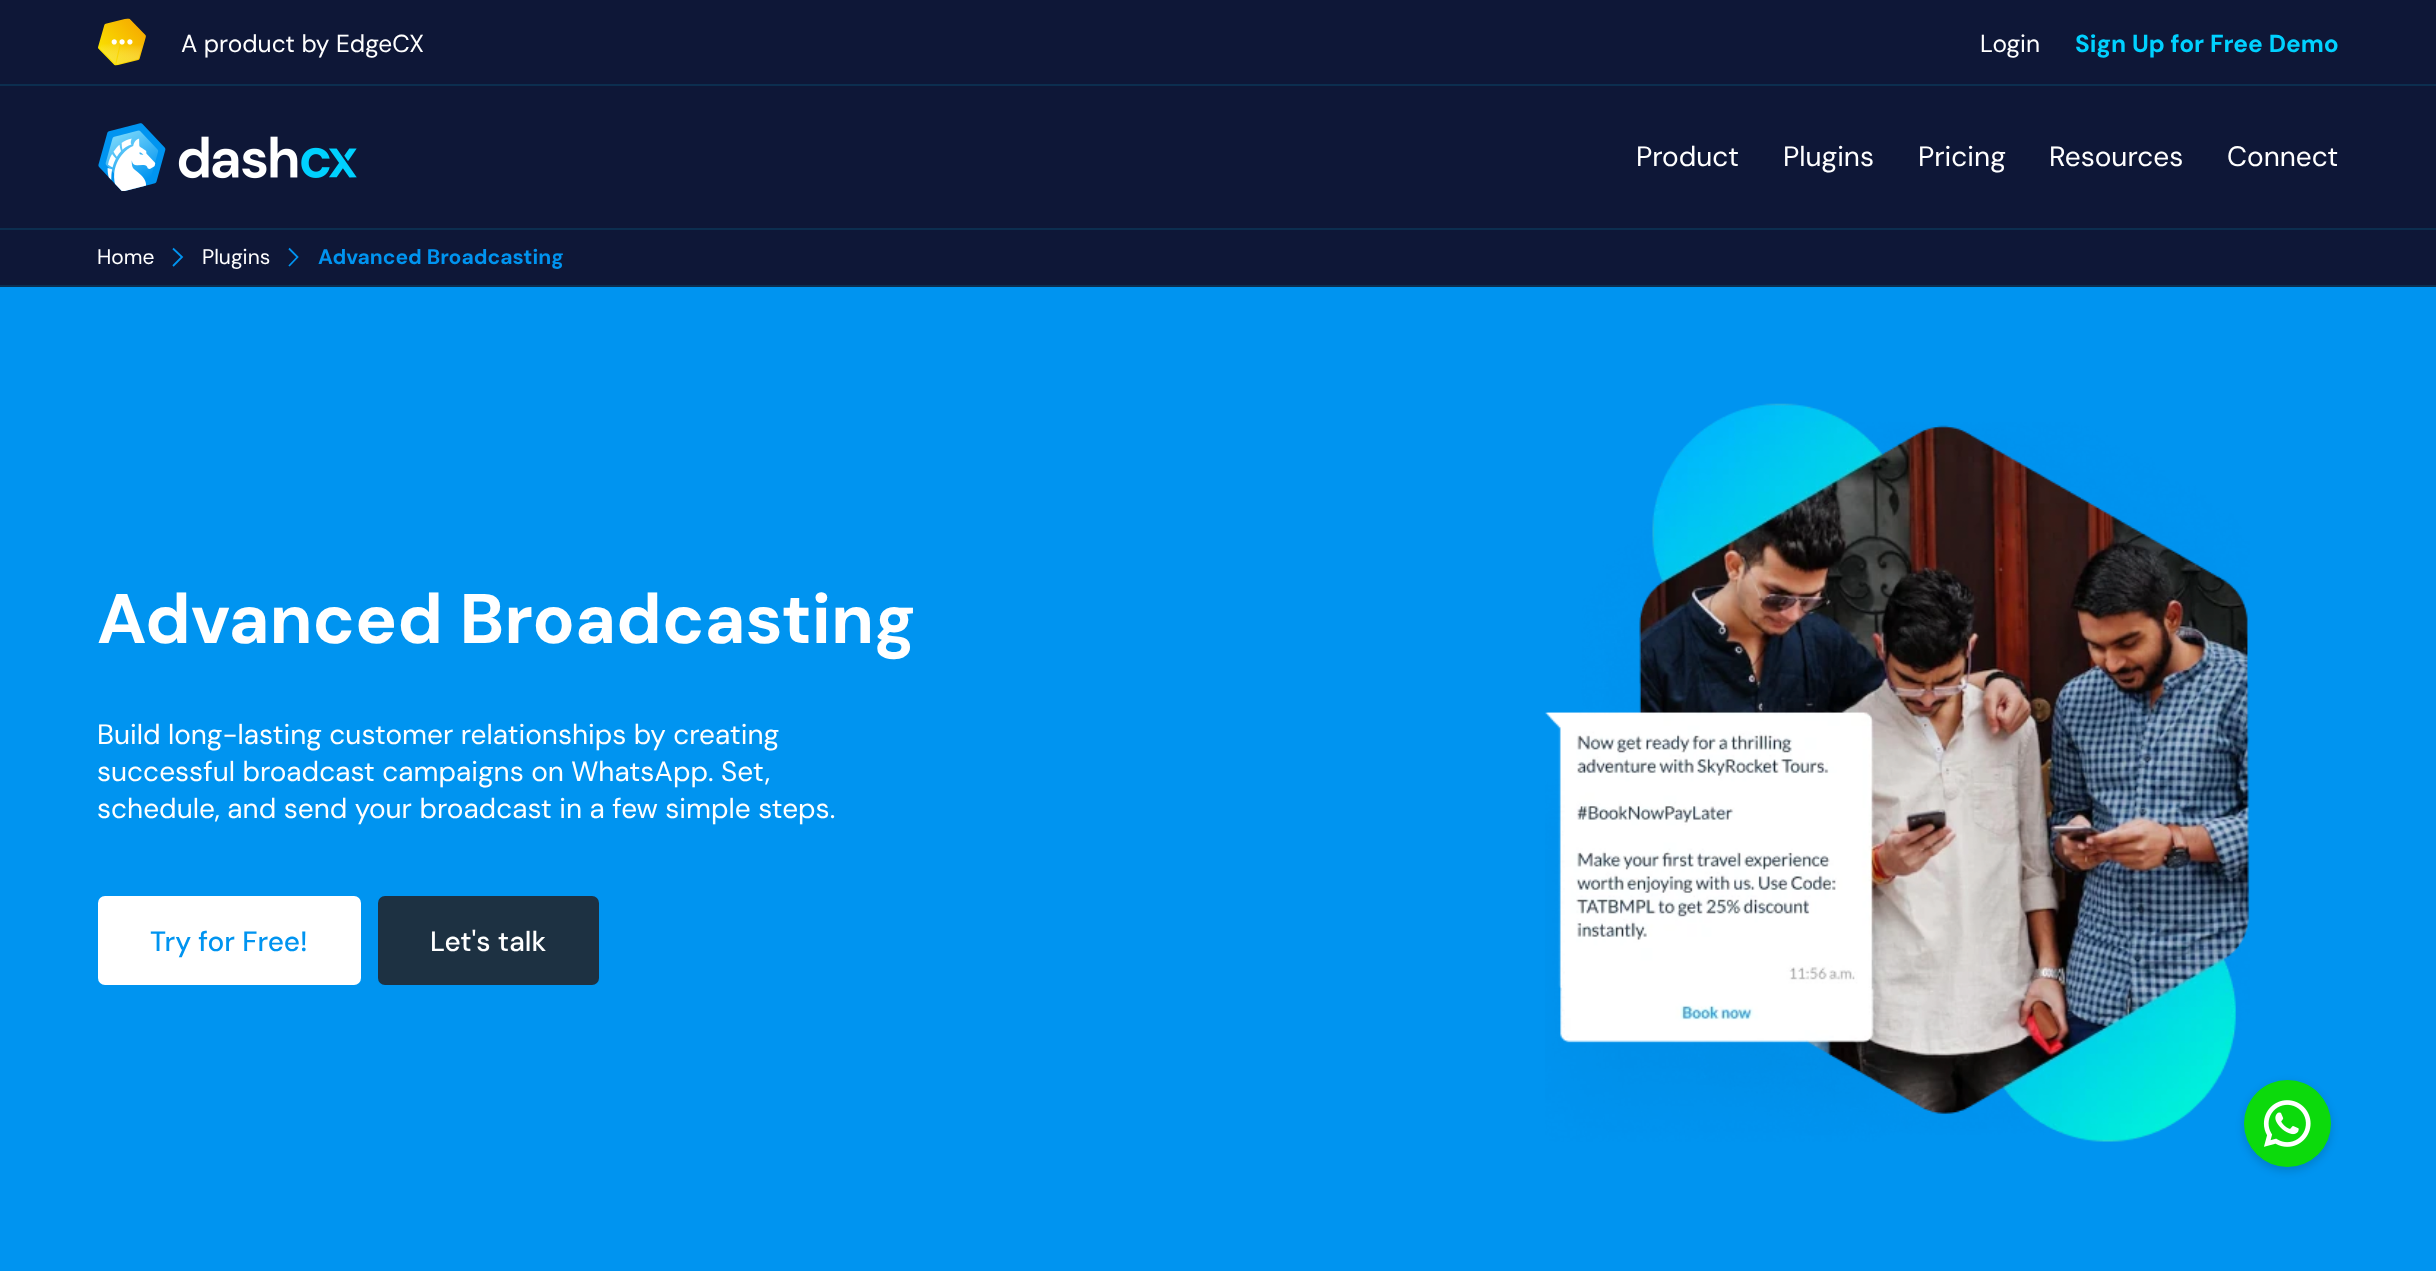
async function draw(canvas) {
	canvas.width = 2436;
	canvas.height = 1271;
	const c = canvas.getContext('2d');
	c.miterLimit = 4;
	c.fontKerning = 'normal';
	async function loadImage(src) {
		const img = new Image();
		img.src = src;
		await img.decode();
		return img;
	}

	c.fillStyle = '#0e1737';
	c.fillRect(0, 0, 2436, 1271);
	c.drawImage(await loadImage('img1.png'), 98, 18, 48, 48);
	c.font = '24.5px DM Sans';
	c.fillStyle = '#fff';
	c.fillText('A product by EdgeCX', 181, 52);
	c.fillText('Login', 1980, 52);
	c.font = 'bold 24.5px DM Sans';
	c.fillStyle = '#00d1ff';
	c.fillText('Sign Up for Free Demo', 2075, 52);
	c.fillStyle = '#0c2e4f';
	c.fillRect(0, 84, 2436, 2);
	c.fillRect(0, 228, 2436, 2);
	c.drawImage(await loadImage('img2.png'), 98, 123, 259, 68);
	c.font = '28px DM Sans';
	c.fillStyle = '#fff';
	for (const [text, x, y] of [
		['Product', 1636, 166],
		['Plugins', 1783, 166],
		['Pricing', 1918, 166],
		['Resources', 2049, 166],
		['Connect', 2227, 166],
	]) {
		c.fillText(text, x, y);
	}
	c.fillStyle = '#0c2e4f';
	c.fillRect(0, 285, 2436, 2);
	c.font = '21px DM Sans';
	c.fillStyle = '#fff';
	c.fillText('Home', 97, 264);
	c.beginPath();
	c.moveTo(173, 248.5);
	c.lineTo(182, 257);
	c.lineTo(173, 266);
	c.strokeStyle = '#0094f0';
	c.lineWidth = 1.8;
	c.stroke();
	c.fillText('Plugins', 202, 264);
	c.beginPath();
	c.moveTo(289, 248.5);
	c.lineTo(297.5, 257);
	c.lineTo(289, 266);
	c.stroke();
	c.font = 'bold 21px DM Sans';
	c.fillStyle = '#0094f0';
	c.fillText('Advanced Broadcasting', 318, 264);
	c.fillRect(0, 287, 2436, 984);
	c.font = 'bold 70px DM Sans';
	c.fillStyle = '#fff';
	c.fillText('Advanced Broadcasting', 97, 643);
	c.font = '28px DM Sans';
	for (const [text, x, y] of [
		['Build long-lasting customer relationships by creating', 97, 744],
		['successful broadcast campaigns on WhatsApp. Set,', 97, 781],
		['schedule, and send your broadcast in a few simple steps.', 97, 818],
	]) {
		c.fillText(text, x, y);
	}
	c.beginPath();
	c.roundRect(98, 896, 263, 89, 7);
	c.fill();
	c.font = '500 28px DM Sans';
	c.fillStyle = '#0094f0';
	c.fillText('Try for Free!', 150, 951);
	c.fillStyle = '#1d3142';
	c.beginPath();
	c.roundRect(378, 896, 221, 89, 7);
	c.fill();
	c.fillStyle = '#fff';
	c.fillText('Let\'s talk', 430, 951);
	c.drawImage(await loadImage('img3.png'), 1545, 403, 705, 739);
	c.fillStyle = '#00000026';
	c.filter = 'blur(4.5px)';
	c.beginPath();
	c.roundRect(2244, 1083, 87, 88, 43.5);
	c.fill();
	c.filter = 'none';
	c.fillStyle = '#0cda0c';
	c.beginPath();
	c.arc(2287.5, 1123.5, 43.5, 0, 2 * Math.PI);
	c.fill();
	c.drawImage(await loadImage('img4.png'), 2263, 1100, 48, 47);
}

draw(document.querySelector('canvas'));
